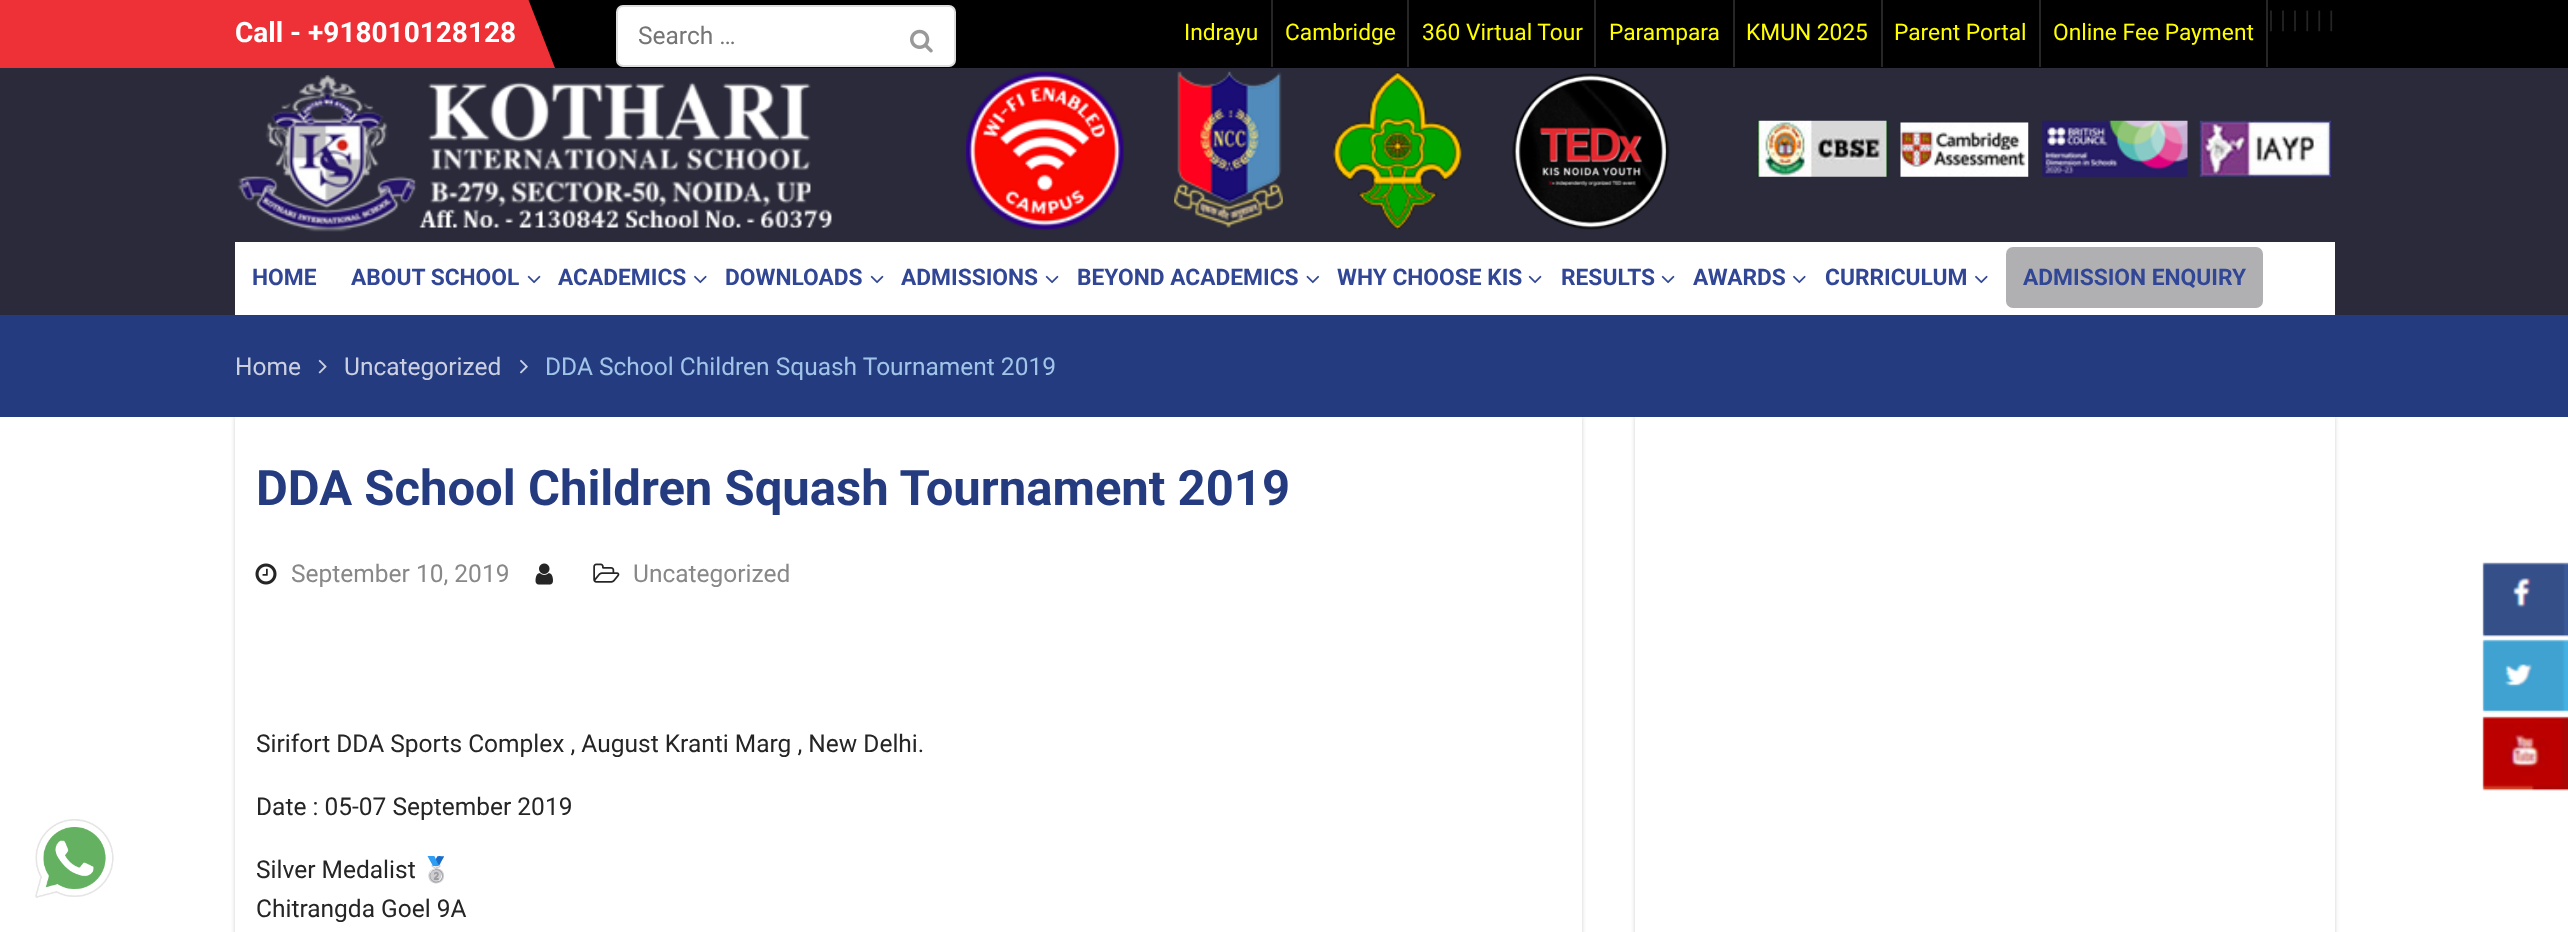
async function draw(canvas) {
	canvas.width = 2568;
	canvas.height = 932;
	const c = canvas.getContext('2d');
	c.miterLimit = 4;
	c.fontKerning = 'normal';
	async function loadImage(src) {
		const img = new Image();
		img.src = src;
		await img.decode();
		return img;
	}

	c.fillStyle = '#fff';
	c.fillRect(0, 0, 2568, 932);
	c.fillStyle = '#000';
	c.fillRect(528, 0, 2040, 68);
	c.fillStyle = '#ed3136';
	c.fillRect(0, 0, 527, 68);
	c.font = 'bold 28px Roboto';
	c.fillStyle = '#fff';
	c.fillText('Call - +918010128128', 235, 42);
	c.fillStyle = '#ed3136';
	c.beginPath();
	c.moveTo(527, 68);
	c.lineTo(527, -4);
	c.lineTo(555, 68);
	c.closePath();
	c.fill();
	c.fillStyle = '#262626';
	c.fillRect(1271, 0, 2, 67);
	c.font = '22.75px Roboto';
	c.fillStyle = '#ff0';
	c.fillText('Indrayu', 1184, 40);
	c.fillStyle = '#262626';
	c.fillRect(1407, 0, 2, 67);
	c.fillStyle = '#ff0';
	c.fillText('Cambridge', 1285, 40);
	c.fillStyle = '#262626';
	c.fillRect(1594, 0, 2, 67);
	c.fillStyle = '#ff0';
	c.fillText('360 Virtual Tour', 1422, 40);
	c.fillStyle = '#262626';
	c.fillRect(1733, 0, 2, 67);
	c.fillStyle = '#ff0';
	c.fillText('Parampara', 1609, 40);
	c.fillStyle = '#262626';
	c.fillRect(1881, 0, 2, 67);
	c.fillStyle = '#ff0';
	c.fillText('KMUN 2025', 1746, 40);
	c.fillStyle = '#262626';
	c.fillRect(2039, 0, 2, 67);
	c.fillStyle = '#ff0';
	c.fillText('Parent Portal', 1894, 40);
	c.fillStyle = '#262626';
	c.fillRect(2266, 0, 2, 67);
	c.fillStyle = '#ff0';
	c.fillText('Online Fee Payment', 2053, 40);
	c.font = '24.5px Roboto';
	c.fillStyle = '#252525';
	c.fillText('| | | | | |', 2268, 28);
	c.fillStyle = '#2a2a3a';
	c.fillRect(0, 68, 2568, 247);
	c.drawImage(await loadImage('img1.png'), 237, 75, 595, 157);
	c.drawImage(await loadImage('img2.png'), 966, 71, 158, 159);
	c.drawImage(await loadImage('img3.png'), 1174, 71, 109, 157);
	c.drawImage(await loadImage('img4.png'), 1333, 71, 129, 159);
	c.drawImage(await loadImage('img5.png'), 1512, 73, 158, 157);
	c.drawImage(await loadImage('img6.png'), 1757, 120, 132, 57);
	c.drawImage(await loadImage('img7.png'), 1900, 122, 129, 55);
	c.drawImage(await loadImage('img8.png'), 2042, 120, 146, 57);
	c.drawImage(await loadImage('img9.png'), 2199, 120, 132, 57);
	c.fillStyle = '#fff';
	c.fillRect(235, 242, 2100, 73);
	c.font = 'bold 22.75px Roboto';
	c.fillStyle = '#314695';
	c.fillText('HOME', 252, 285);
	c.fillText('ABOUT SCHOOL', 351, 285);
	c.drawImage(await loadImage('img10.png'), 527, 275, 14, 9);
	c.fillText('ACADEMICS', 558, 285);
	c.drawImage(await loadImage('img11.png'), 694, 275, 13, 9);
	c.fillText('DOWNLOADS', 725, 285);
	c.drawImage(await loadImage('img10.png'), 870, 275, 14, 9);
	c.fillText('ADMISSIONS', 901, 285);
	c.drawImage(await loadImage('img10.png'), 1045, 275, 14, 9);
	c.fillText('BEYOND ACADEMICS', 1077, 285);
	c.drawImage(await loadImage('img12.png'), 1306, 275, 14, 9);
	c.fillText('WHY CHOOSE KIS', 1337, 285);
	c.drawImage(await loadImage('img10.png'), 1528, 275, 14, 9);
	c.fillText('RESULTS', 1561, 285);
	c.drawImage(await loadImage('img10.png'), 1661, 275, 14, 9);
	c.fillText('AWARDS', 1693, 285);
	c.drawImage(await loadImage('img11.png'), 1793, 275, 13, 9);
	c.fillText('CURRICULUM', 1825, 285);
	c.drawImage(await loadImage('img11.png'), 1975, 275, 13, 9);
	c.fillStyle = '#b0b0b3';
	c.beginPath();
	c.roundRect(2006, 247, 257, 61, 7);
	c.fill();
	c.fillStyle = '#314695';
	c.fillText('ADMISSION ENQUIRY', 2023, 285);
	c.save();
	c.beginPath();
	c.moveTo(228, 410);
	c.lineTo(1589, 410);
	c.lineTo(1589, 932);
	c.lineTo(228, 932);
	c.closePath();
	c.moveTo(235, 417);
	c.lineTo(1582, 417);
	c.lineTo(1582, 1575);
	c.lineTo(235, 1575);
	c.closePath();
	c.clip('evenodd');
	c.fillStyle = '#cfcfcf';
	c.filter = 'blur(2px)';
	c.beginPath();
	c.rect(235, 417, 1347, 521);
	c.fill();
	c.filter = 'none';
	c.restore();
	c.fillStyle = '#cfcfcf';
	c.filter = 'blur(2px)';
	c.beginPath();
	c.rect(1635, 417, 700, 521);
	c.fill();
	c.filter = 'none';
	c.fillStyle = '#253b80';
	c.fillRect(0, 315, 2568, 102);
	c.font = '24.5px Roboto';
	c.fillStyle = '#cbd0e1';
	c.fillText('Home', 235, 375);
	c.drawImage(await loadImage('img13.png'), 318, 359, 9, 15);
	c.fillText('Uncategorized', 344, 375);
	c.drawImage(await loadImage('img14.png'), 520, 359, 8, 15);
	c.fillStyle = '#a0c5e8';
	c.fillText('DDA School Children Squash Tournament 2019', 545, 375);
	c.font = 'bold 49px Roboto';
	c.fillStyle = '#253b80';
	c.fillText('DDA School Children Squash Tournament 2019', 256, 505);
	c.drawImage(await loadImage('img15.png'), 255, 563, 22, 22);
	c.font = '24.5px Roboto';
	c.fillStyle = '#888';
	c.fillText('September 10, 2019', 291, 582);
	c.drawImage(await loadImage('img16.png'), 535, 563, 18, 22);
	c.drawImage(await loadImage('img17.png'), 593, 563, 27, 20);
	c.fillText('Uncategorized', 633, 582);
	c.fillStyle = '#252525';
	for (const [text, x, y] of [
		['Sirifort DDA Sports Complex , August Kranti Marg , New Delhi.', 256, 752],
		['Date : 05-07 September 2019', 256, 815],
		['Silver Medalist', 256, 878],
	]) {
		c.fillText(text, x, y);
	}
	c.font = '24.5px Noto Color Emoji';
	c.fillText('🥈', 421, 878);
	c.font = '24.5px Roboto';
	c.fillText('Chitrangda Goel 9A', 256, 917);
	c.fillStyle = '#fff';
	c.fillRect(1635, 417, 700, 515);
	c.beginPath();
	c.roundRect(617, 6, 338, 60, 6);
	c.fill();
	c.strokeStyle = '#ddd';
	c.lineWidth = 2;
	c.stroke();
	c.fillStyle = '#757575';
	c.fillText('Search …', 638, 44);
	c.drawImage(await loadImage('img18.png'), 910, 29, 23, 24);
	c.drawImage(await loadImage('img19.png'), 2482, 562, 86, 75);
	c.drawImage(await loadImage('img20.png'), 2482, 639, 86, 74);
	c.drawImage(await loadImage('img21.png'), 2482, 716, 86, 75);
	c.drawImage(await loadImage('img22.png'), 35, 819, 79, 79);
}

draw(document.querySelector('canvas'));
